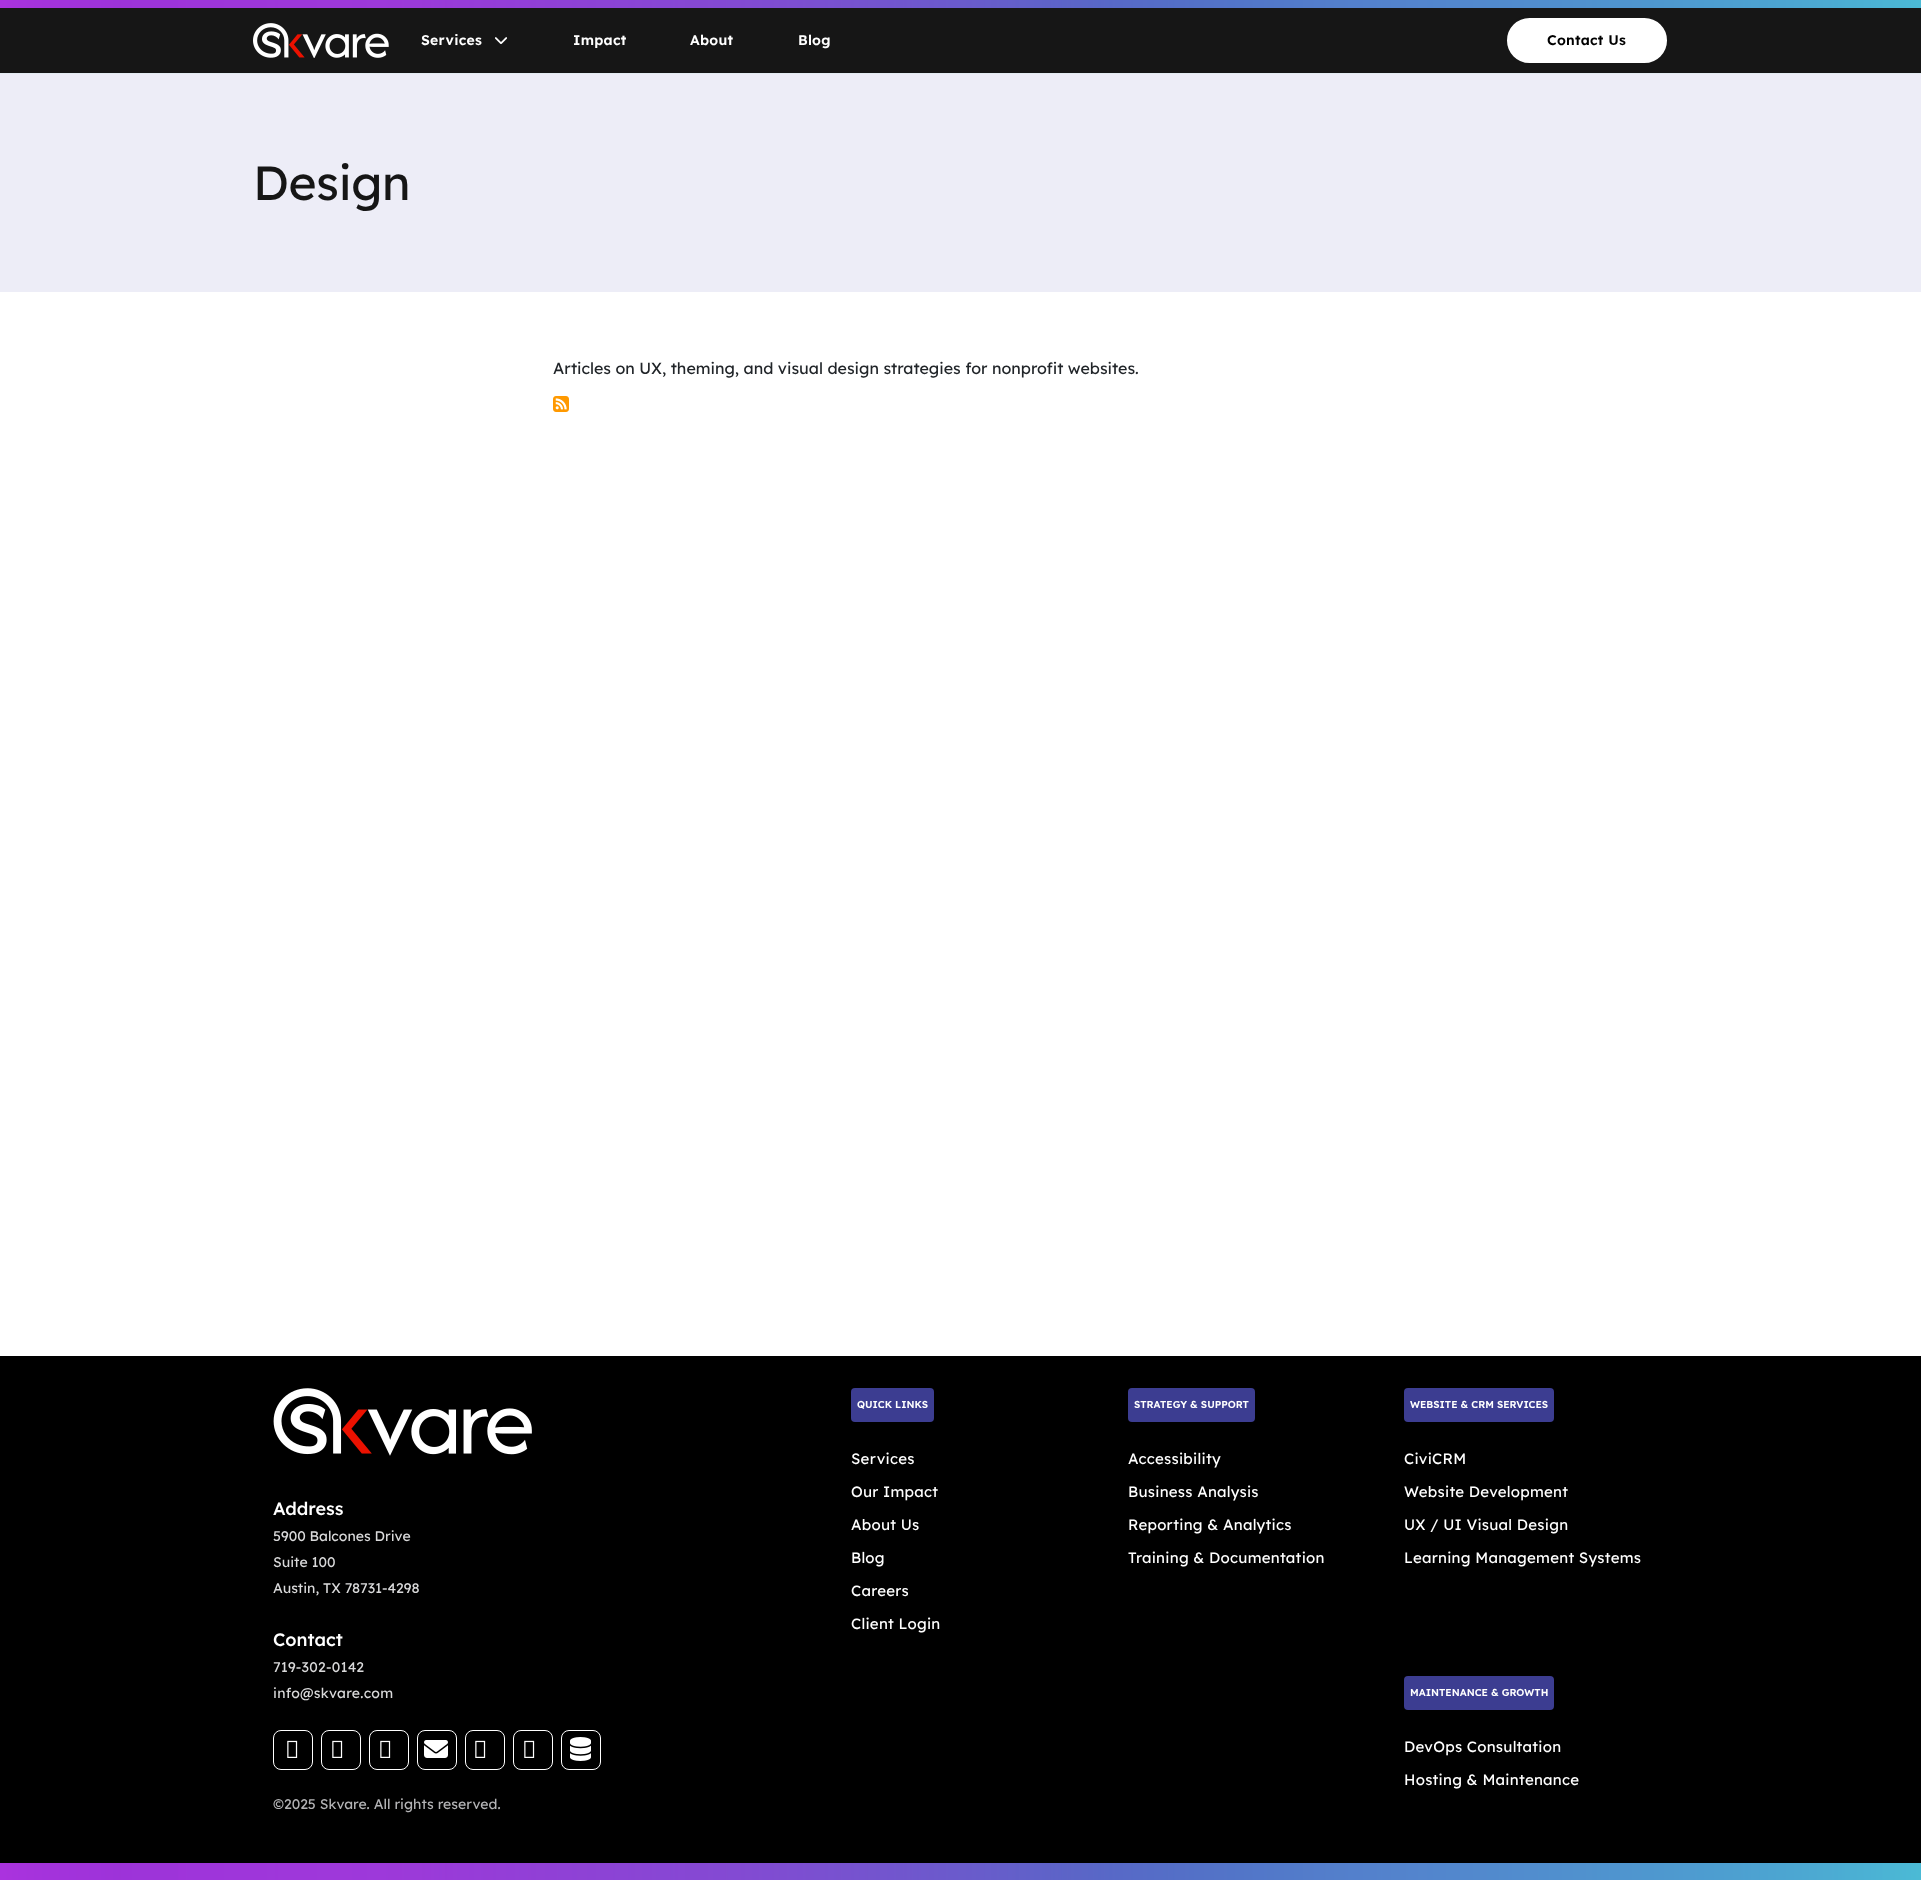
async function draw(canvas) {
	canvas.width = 1921;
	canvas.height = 1880;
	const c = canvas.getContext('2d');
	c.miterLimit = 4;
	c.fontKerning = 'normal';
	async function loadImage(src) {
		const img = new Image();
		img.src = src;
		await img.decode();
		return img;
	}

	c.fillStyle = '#fff';
	c.fillRect(0, 0, 1921, 1880);
	c.fillStyle = '#161616';
	c.fillRect(0, 8, 1921, 65);
	c.fillStyle = '#e3ebf1';
	c.fillRect(0, 73, 1921, 1);
	c.drawImage(await loadImage('img1.png'), 0, 0, 1921, 8);
	c.drawImage(await loadImage('img2.png'), 253, 23, 136, 35);
	c.letterSpacing = '0.25px';
	c.font = '600 14px Lexend';
	c.fillStyle = '#fff';
	c.fillText('Services', 421, 45);
	c.drawImage(await loadImage('img3.png'), 495, 37, 12, 7);
	for (const [text, x, y] of [
		['Impact', 573, 45],
		['About', 690, 45],
		['Blog', 798, 45],
	]) {
		c.fillText(text, x, y);
	}
	c.beginPath();
	c.roundRect(1506, 17, 162, 47, 23.5);
	c.fill();
	c.strokeStyle = '#161616';
	c.lineWidth = 2;
	c.stroke();
	c.fillStyle = '#000';
	c.fillText('Contact Us', 1547, 45);
	c.fillStyle = '#ededf7';
	c.fillRect(0, 74, 1921, 218);
	c.letterSpacing = '-0.5px';
	c.font = '48px Lexend';
	c.fillStyle = '#161616';
	c.fillText('Design', 253, 200);
	c.letterSpacing = '0px';
	c.font = '16px Lexend';
	c.fillStyle = '#212529';
	c.fillText('Articles on UX, theming, and visual design strategies for nonprofit websites.', 553, 374);
	c.drawImage(await loadImage('img4.png'), 553, 396, 16, 16);
	c.fillStyle = '#000';
	c.fillRect(0, 1356, 1921, 507);
	c.drawImage(await loadImage('img5.png'), 273, 1388, 259, 68);
	c.font = '500 18px Lexend';
	c.fillStyle = '#fff';
	c.fillText('Address', 273, 1515);
	c.font = '14px Lexend';
	c.fillStyle = '#d9d9da';
	for (const [text, x, y] of [
		['5900 Balcones Drive', 273, 1541],
		['Suite 100', 273, 1567],
		['Austin, TX 78731-4298', 273, 1593],
	]) {
		c.fillText(text, x, y);
	}
	c.font = '500 18px Lexend';
	c.fillStyle = '#fff';
	c.fillText('Contact', 273, 1646);
	c.letterSpacing = '0.25px';
	c.font = '14px Lexend';
	c.fillStyle = '#d9d9da';
	c.fillText('719-302-0142', 273, 1672);
	c.fillText('info@skvare.com', 273, 1698);
	c.beginPath();
	c.roundRect(273.5, 1730.5, 39, 39, 7.5);
	c.strokeStyle = '#fff';
	c.lineWidth = 1;
	c.stroke();
	c.drawImage(await loadImage('img6.png'), 287, 1740, 11, 18);
	c.beginPath();
	c.roundRect(321.5, 1730.5, 39, 39, 7.5);
	c.stroke();
	c.drawImage(await loadImage('img6.png'), 332, 1740, 11, 18);
	c.beginPath();
	c.roundRect(369.5, 1730.5, 39, 39, 7.5);
	c.stroke();
	c.drawImage(await loadImage('img6.png'), 380, 1740, 11, 18);
	c.beginPath();
	c.roundRect(417.5, 1730.5, 39, 39, 7.5);
	c.stroke();
	c.drawImage(await loadImage('img7.png'), 424, 1740, 24, 18);
	c.beginPath();
	c.roundRect(465.5, 1730.5, 39, 39, 7.5);
	c.stroke();
	c.drawImage(await loadImage('img6.png'), 475, 1740, 11, 18);
	c.beginPath();
	c.roundRect(513.5, 1730.5, 39, 39, 7.5);
	c.stroke();
	c.drawImage(await loadImage('img6.png'), 524, 1740, 11, 18);
	c.beginPath();
	c.roundRect(561.5, 1730.5, 39, 39, 7.5);
	c.stroke();
	c.drawImage(await loadImage('img8.png'), 570, 1737, 21, 24);
	c.letterSpacing = '0px';
	c.fillStyle = '#b3b3b5';
	c.fillText('©2025 Skvare. All rights reserved.', 273, 1809);
	c.fillStyle = '#3c3d91';
	c.beginPath();
	c.roundRect(851, 1388, 83, 34, 4);
	c.fill();
	c.font = '600 10px Lexend';
	c.fillStyle = '#fff';
	c.fillText('QUICK LINKS', 857, 1408);
	c.letterSpacing = '0.25px';
	c.font = '15px Lexend';
	for (const [text, x, y] of [
		['Services', 851, 1464],
		['Our Impact', 851, 1497],
		['About Us', 851, 1530],
		['Blog', 851, 1563],
		['Careers', 851, 1596],
		['Client Login', 851, 1629],
	]) {
		c.fillText(text, x, y);
	}
	c.fillStyle = '#3c3d91';
	c.beginPath();
	c.roundRect(1128, 1388, 127, 34, 4);
	c.fill();
	c.letterSpacing = '0px';
	c.font = '600 10px Lexend';
	c.fillStyle = '#fff';
	c.fillText('STRATEGY & SUPPORT', 1134, 1408);
	c.letterSpacing = '0.25px';
	c.font = '15px Lexend';
	for (const [text, x, y] of [
		['Accessibility', 1128, 1464],
		['Business Analysis', 1128, 1497],
		['Reporting & Analytics', 1128, 1530],
		['Training & Documentation', 1128, 1563],
	]) {
		c.fillText(text, x, y);
	}
	c.fillStyle = '#3c3d91';
	c.beginPath();
	c.roundRect(1404, 1388, 150, 34, 4);
	c.fill();
	c.letterSpacing = '0px';
	c.font = '600 10px Lexend';
	c.fillStyle = '#fff';
	c.fillText('WEBSITE & CRM SERVICES', 1410, 1408);
	c.letterSpacing = '0.25px';
	c.font = '15px Lexend';
	for (const [text, x, y] of [
		['CiviCRM', 1404, 1464],
		['Website Development', 1404, 1497],
		['UX / UI Visual Design', 1404, 1530],
		['Learning Management Systems', 1404, 1563],
	]) {
		c.fillText(text, x, y);
	}
	c.fillStyle = '#3c3d91';
	c.beginPath();
	c.roundRect(1404, 1676, 150, 34, 4);
	c.fill();
	c.letterSpacing = '0px';
	c.font = '600 10px Lexend';
	c.fillStyle = '#fff';
	c.fillText('MAINTENANCE & GROWTH', 1410, 1696);
	c.letterSpacing = '0.25px';
	c.font = '15px Lexend';
	c.fillText('DevOps Consultation', 1404, 1752);
	c.fillText('Hosting & Maintenance', 1404, 1785);
	c.drawImage(await loadImage('img9.png'), 0, 1863, 1921, 17);
}

draw(document.querySelector('canvas'));
